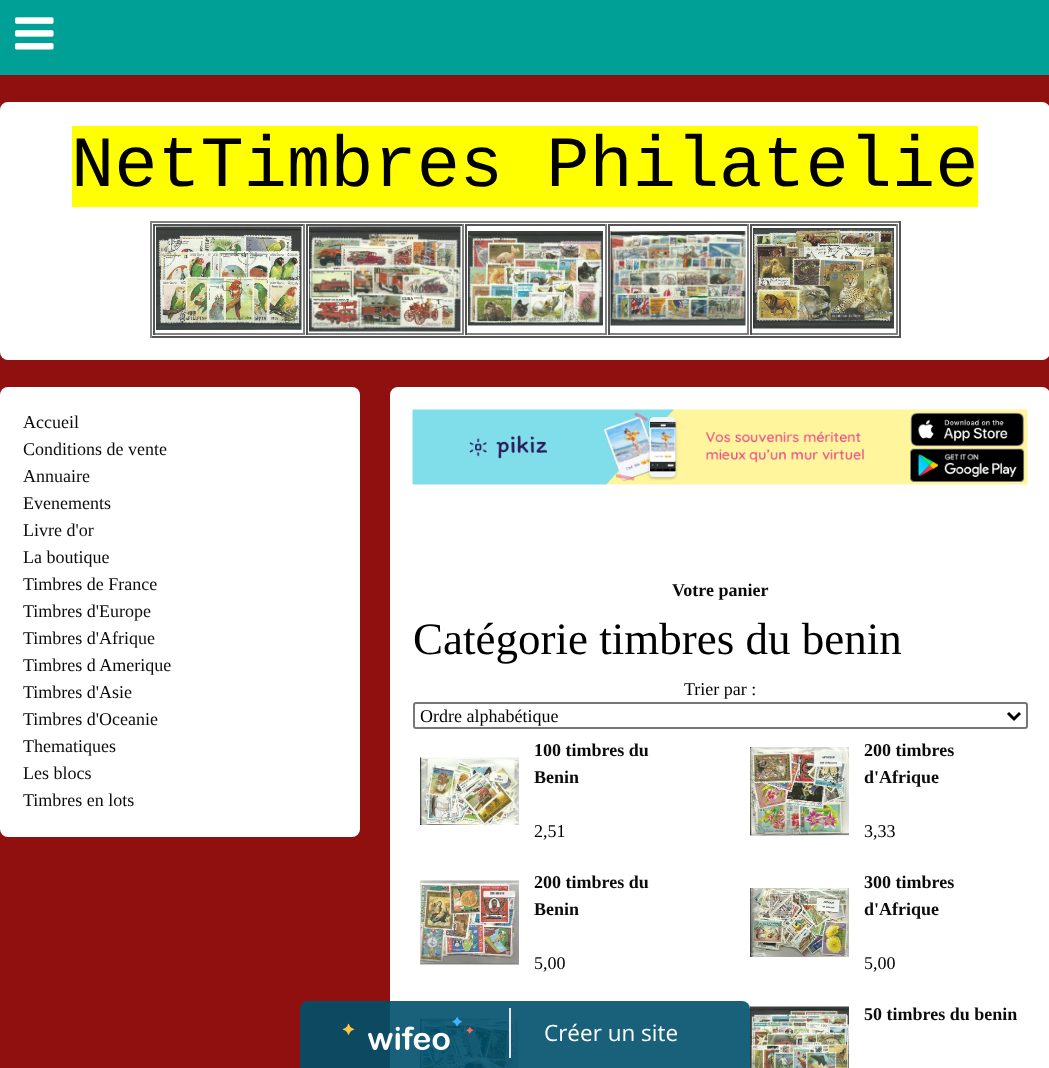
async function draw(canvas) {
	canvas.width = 1049;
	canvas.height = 1068;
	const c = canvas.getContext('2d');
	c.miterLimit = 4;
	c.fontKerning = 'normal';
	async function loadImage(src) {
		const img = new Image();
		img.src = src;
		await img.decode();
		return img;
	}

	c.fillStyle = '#900f0f';
	c.fillRect(0, 0, 1049, 1068);
	c.fillStyle = '#fff';
	c.beginPath();
	c.roundRect(0, 102, 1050, 258, 8);
	c.fill();
	c.fillStyle = '#ff0';
	c.fillRect(72, 126, 906, 81);
	c.font = '72px Liberation Mono';
	c.fillStyle = '#000';
	c.fillText('NetTimbres Philatelie', 71, 186);
	for (const [x, y, w, h, color] of [
		[150, 221, 750, 2, '#808080'],
		[899, 221, 2, 117, '#555'],
		[150, 336, 750, 2, '#555'],
		[150, 221, 2, 117, '#808080'],
		[153, 224, 152, 2, '#555'],
		[303, 224, 2, 111, '#808080'],
		[153, 333, 152, 2, '#808080'],
		[153, 224, 2, 111, '#555'],
	]) {
		c.fillStyle = color;
		c.fillRect(x, y, w, h);
	}
	c.drawImage(await loadImage('img1.png'), 156, 226, 146, 104);
	for (const [x, y, w, h, color] of [
		[306, 224, 158, 2, '#555'],
		[462, 224, 2, 111, '#808080'],
		[306, 333, 158, 2, '#808080'],
		[306, 224, 2, 111, '#555'],
	]) {
		c.fillStyle = color;
		c.fillRect(x, y, w, h);
	}
	c.drawImage(await loadImage('img2.png'), 309, 226, 152, 106);
	for (const [x, y, w, h, color] of [
		[465, 224, 141, 2, '#555'],
		[605, 224, 2, 111, '#808080'],
		[465, 333, 141, 2, '#808080'],
		[465, 224, 2, 111, '#555'],
	]) {
		c.fillStyle = color;
		c.fillRect(x, y, w, h);
	}
	c.drawImage(await loadImage('img3.png'), 468, 231, 135, 95);
	for (const [x, y, w, h, color] of [
		[608, 224, 141, 2, '#555'],
		[747, 224, 2, 111, '#808080'],
		[608, 333, 141, 2, '#808080'],
		[608, 224, 2, 111, '#555'],
	]) {
		c.fillStyle = color;
		c.fillRect(x, y, w, h);
	}
	c.drawImage(await loadImage('img4.png'), 610, 231, 136, 95);
	for (const [x, y, w, h, color] of [
		[750, 224, 147, 2, '#555'],
		[896, 224, 2, 111, '#808080'],
		[750, 333, 147, 2, '#808080'],
		[750, 224, 2, 111, '#555'],
	]) {
		c.fillStyle = color;
		c.fillRect(x, y, w, h);
	}
	c.drawImage(await loadImage('img5.png'), 753, 228, 141, 101);
	c.fillStyle = '#fff';
	c.beginPath();
	c.roundRect(0, 387, 360, 450, 8);
	c.fill();
	c.font = '18px Liberation Serif';
	c.fillStyle = '#0d0a0b';
	for (const [text, x, y] of [
		['Accueil', 23, 428],
		['Conditions de vente', 23, 455],
		['Annuaire', 23, 482],
		['Evenements', 23, 509],
		['Livre d\'or', 23, 536],
		['La boutique', 23, 563],
		['Timbres de France', 23, 590],
		['Timbres d\'Europe', 23, 617],
		['Timbres d\'Afrique', 23, 644],
		['Timbres d Amerique', 23, 671],
		['Timbres d\'Asie', 23, 698],
		['Timbres d\'Oceanie', 23, 725],
		['Thematiques', 23, 752],
		['Les blocs', 23, 779],
		['Timbres en lots', 23, 806],
	]) {
		c.fillText(text, x, y);
	}
	c.fillStyle = '#fff';
	c.beginPath();
	c.roundRect(390, 387, 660, 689, 8);
	c.fill();
	c.fillStyle = '#00a096';
	c.fillRect(0, 0, 1049, 75);
	c.drawImage(await loadImage('img6.png'), 15, 17, 39, 33);
	c.drawImage(await loadImage('img7.png'), 412, 409, 616, 76);
	c.font = 'bold 18px Liberation Serif';
	c.fillStyle = '#0d0a0b';
	c.fillText('Votre panier', 672, 596);
	c.font = '45px Liberation Serif';
	c.fillStyle = '#000';
	c.fillText('Catégorie timbres du benin', 413, 654);
	c.font = '18px Liberation Serif';
	c.fillText('Trier par :', 684, 695);
	c.beginPath();
	c.roundRect(414, 703, 613, 25, 2);
	c.strokeStyle = '#767676';
	c.lineWidth = 2;
	c.stroke();
	c.beginPath();
	c.moveTo(1008, 713);
	c.lineTo(1014, 719);
	c.lineTo(1020, 713);
	c.strokeStyle = '#000';
	c.lineWidth = 3;
	c.stroke();
	c.fillText('Ordre alphabétique', 420, 722);
	c.drawImage(await loadImage('img8.png'), 420, 757, 99, 68);
	c.font = 'bold 18px Liberation Serif';
	c.fillStyle = '#0d0a0b';
	c.fillText('100 timbres du', 534, 756);
	c.fillText('Benin', 534, 783);
	c.font = '18px Liberation Serif';
	c.fillStyle = '#000';
	c.fillText('2,51', 534, 837);
	c.drawImage(await loadImage('img9.png'), 750, 747, 99, 89);
	c.font = 'bold 18px Liberation Serif';
	c.fillStyle = '#0d0a0b';
	c.fillText('200 timbres', 864, 756);
	c.fillText('d\'Afrique', 864, 783);
	c.font = '18px Liberation Serif';
	c.fillStyle = '#000';
	c.fillText('3,33', 864, 837);
	c.drawImage(await loadImage('img10.png'), 420, 880, 99, 85);
	c.font = 'bold 18px Liberation Serif';
	c.fillStyle = '#0d0a0b';
	c.fillText('200 timbres du', 534, 888);
	c.fillText('Benin', 534, 915);
	c.font = '18px Liberation Serif';
	c.fillStyle = '#000';
	c.fillText('5,00', 534, 969);
	c.drawImage(await loadImage('img11.png'), 750, 888, 99, 69);
	c.font = 'bold 18px Liberation Serif';
	c.fillStyle = '#0d0a0b';
	c.fillText('300 timbres', 864, 888);
	c.fillText('d\'Afrique', 864, 915);
	c.font = '18px Liberation Serif';
	c.fillStyle = '#000';
	c.fillText('5,00', 864, 969);
	c.drawImage(await loadImage('img12.png'), 750, 1006, 99, 62);
	c.font = 'bold 18px Liberation Serif';
	c.fillStyle = '#0d0a0b';
	c.fillText('50 timbres du benin', 864, 1020);
	c.drawImage(await loadImage('img13.png'), 420, 1018, 99, 50);
	c.fillStyle = '#00506be6';
	c.beginPath();
	c.roundRect(300, 1001, 450, 67, [8, 8, 0, 0]);
	c.fill();
	c.fillStyle = '#e7e7e7';
	c.fillRect(509, 1008, 2, 50);
	c.drawImage(await loadImage('img14.png'), 342, 1017, 132, 33);
	c.font = '22.5px Open Sans';
	c.fillStyle = '#fff';
	c.fillText('Créer un site', 544, 1041);
}

draw(document.querySelector('canvas'));
